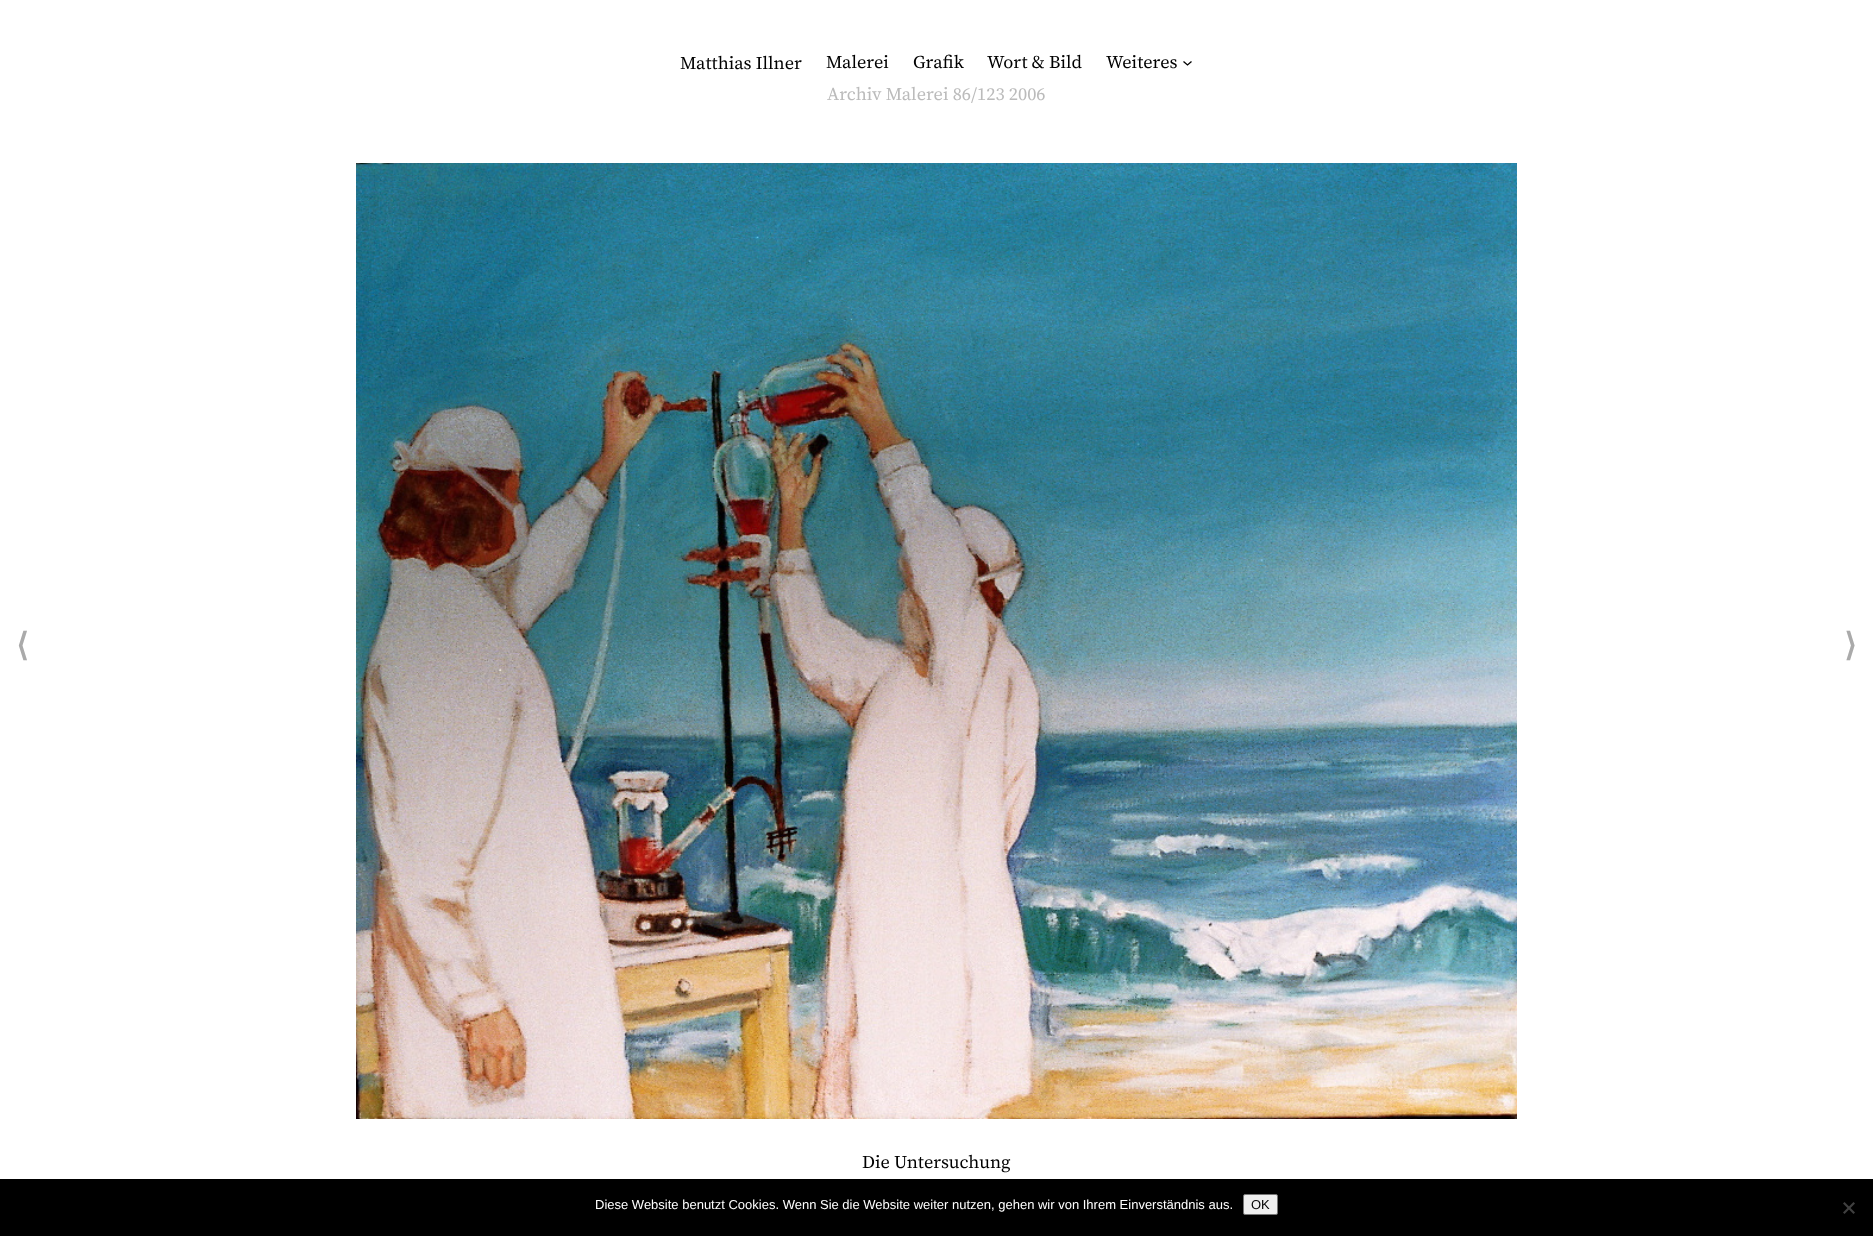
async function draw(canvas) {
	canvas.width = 1873;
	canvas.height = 1236;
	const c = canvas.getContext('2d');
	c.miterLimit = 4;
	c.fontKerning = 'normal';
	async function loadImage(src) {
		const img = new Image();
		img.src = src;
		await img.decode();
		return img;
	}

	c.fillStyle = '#fff';
	c.fillRect(0, 0, 1873, 1236);
	c.font = '18px "Source Serif 4"';
	c.fillStyle = '#000';
	for (const [text, x, y] of [
		['Matthias Illner', 680, 69],
		['Malerei', 826, 68],
		['Grafik', 913, 68],
		['Wort & Bild', 987, 68],
		['Weiteres', 1106, 68],
	]) {
		c.fillText(text, x, y);
	}
	c.beginPath();
	c.moveTo(1183.5, 61.5);
	c.lineTo(1187.5, 65);
	c.lineTo(1191.5, 61.5);
	c.strokeStyle = '#000';
	c.lineWidth = 1.3;
	c.stroke();
	c.fillStyle = '#bbb';
	c.fillText('Archiv Malerei 86/123 2006', 827, 100);
	c.font = 'bold 32px DejaVu Sans';
	c.fillStyle = '#aaa';
	c.fillText('⟨', 16, 656);
	c.drawImage(await loadImage('img1.png'), 356, 163, 1161, 956);
	c.fillText('⟩', 1844, 656);
	c.font = '18px "Source Serif 4"';
	c.fillStyle = '#000';
	c.fillText('Die Untersuchung', 862, 1168);
	c.fillRect(0, 1179, 1873, 57);
	c.font = '13px Liberation Sans';
	c.fillStyle = '#fff';
	c.fillText('Diese Website benutzt Cookies. Wenn Sie die Website weiter nutzen, gehen wir von Ihrem Einverständnis aus.', 595, 1209);
	c.fillStyle = '#efefef';
	c.beginPath();
	c.roundRect(1243.5, 1194.5, 34, 20, 1.5);
	c.fill();
	c.strokeStyle = '#767676';
	c.lineWidth = 1;
	c.stroke();
	c.fillStyle = '#000';
	c.fillText('OK', 1251, 1209);
	c.fillStyle = '#404040';
	c.beginPath();
	c.moveTo(1853.5, 1202);
	c.lineTo(1855, 1203.5);
	c.lineTo(1844.5, 1214);
	c.lineTo(1843, 1212.5);
	c.closePath();
	c.fill();
	c.beginPath();
	c.moveTo(1843, 1203.5);
	c.lineTo(1844.5, 1202);
	c.lineTo(1855, 1212.5);
	c.lineTo(1853.5, 1214);
	c.closePath();
	c.fill();
}

draw(document.querySelector('canvas'));
